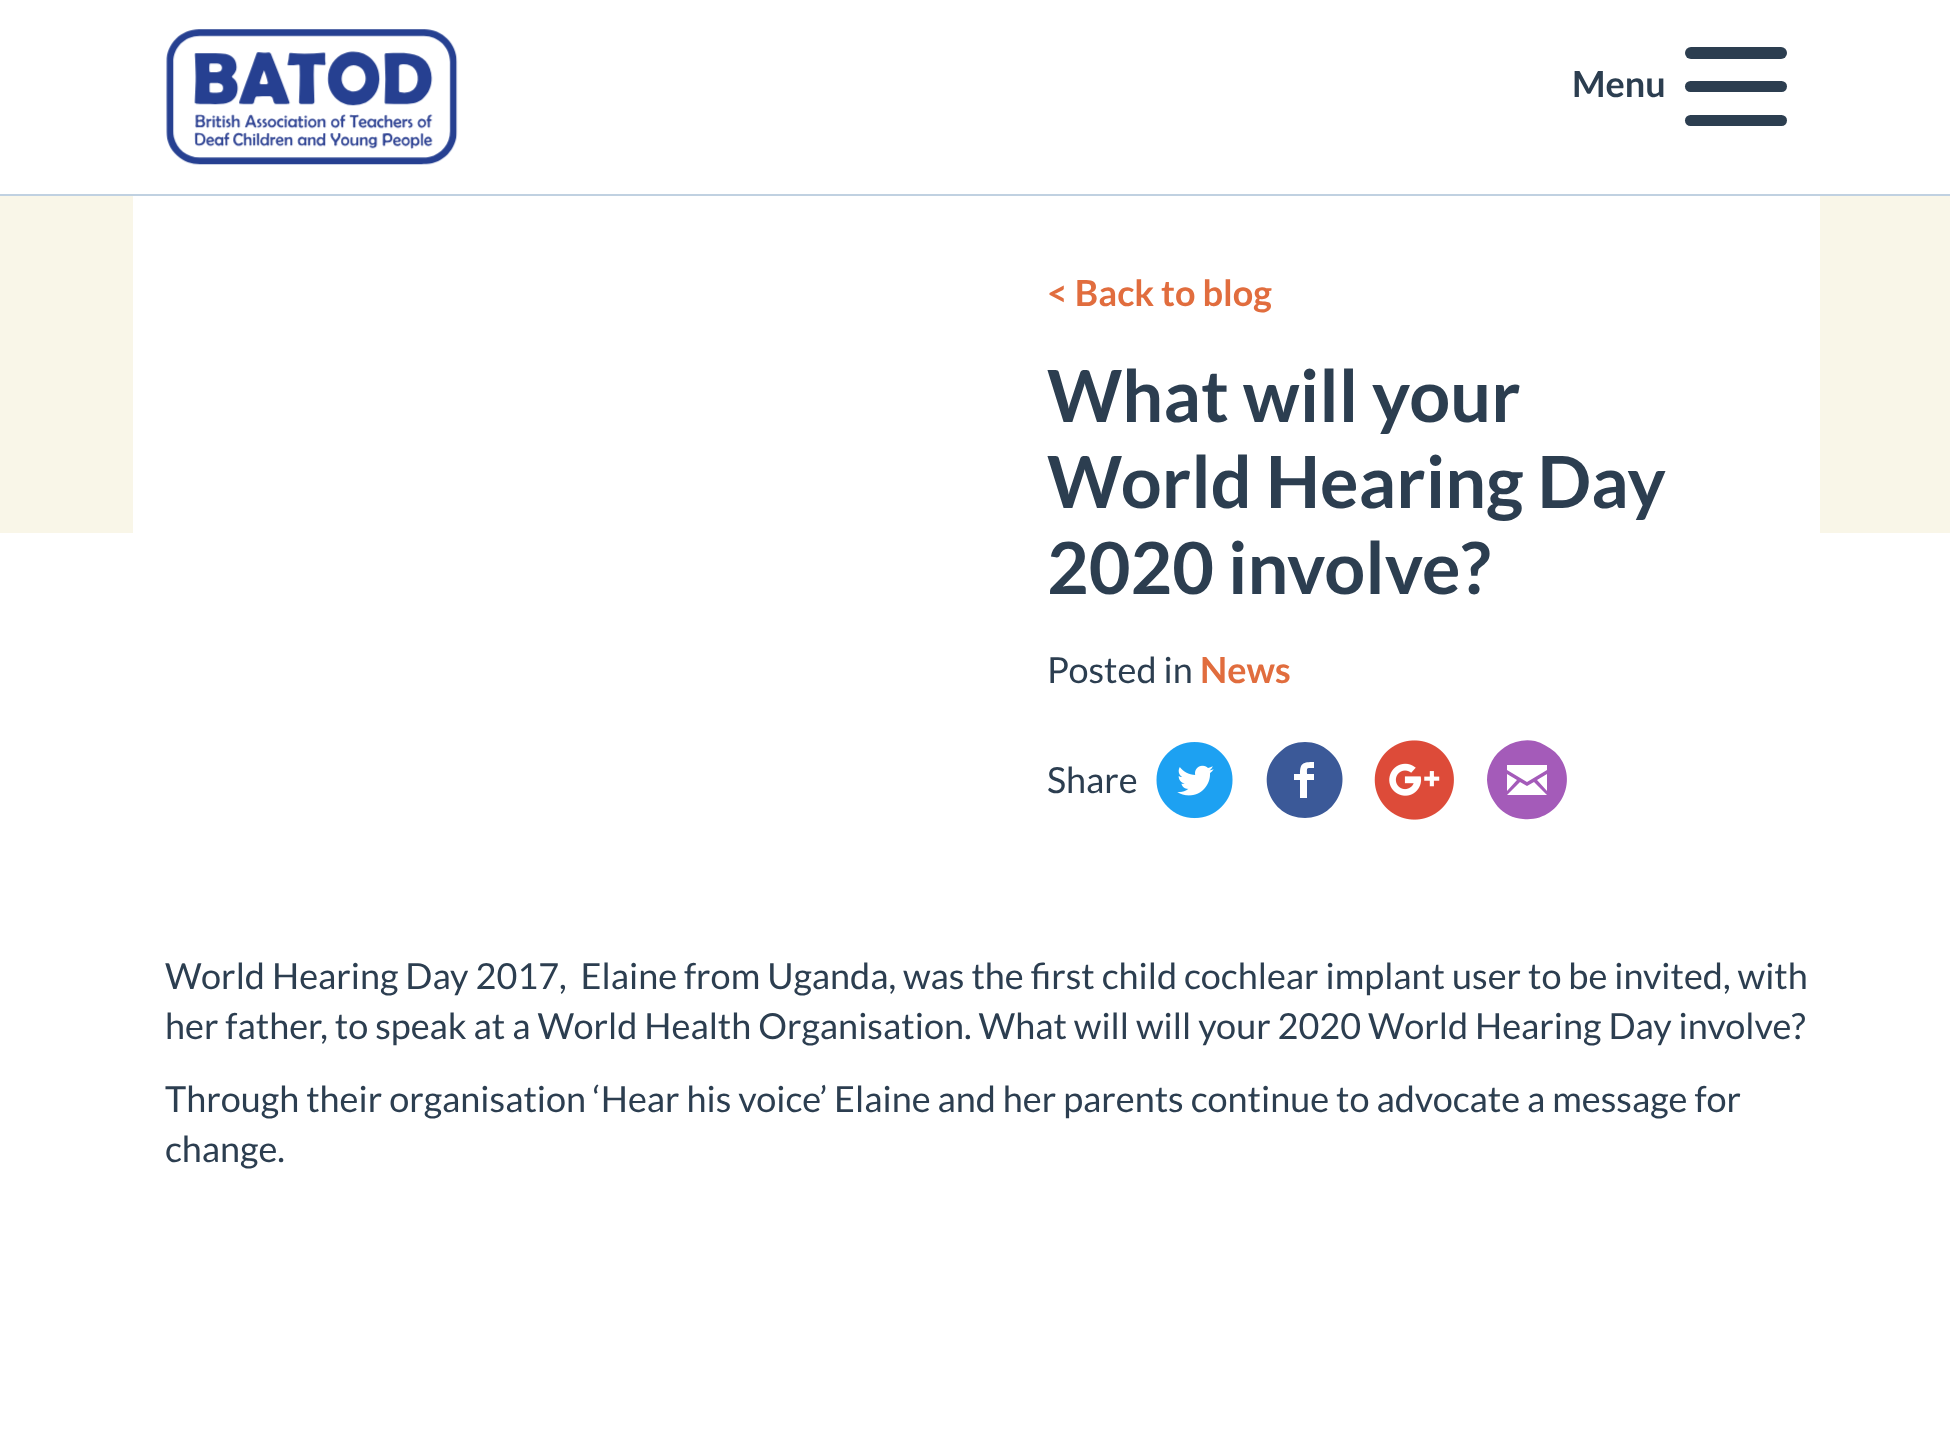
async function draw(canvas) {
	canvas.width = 1950;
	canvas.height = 1441;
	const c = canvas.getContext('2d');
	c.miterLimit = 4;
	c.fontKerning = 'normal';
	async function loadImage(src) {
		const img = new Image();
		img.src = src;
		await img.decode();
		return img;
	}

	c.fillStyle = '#fff';
	c.fillRect(0, 0, 1950, 1441);
	c.fillStyle = '#c0d1e1';
	c.fillRect(0, 194, 1950, 2);
	c.drawImage(await loadImage('img1.png'), 166, 29, 292, 136);
	c.font = 'bold 36px Lato';
	c.fillStyle = '#2c3e50';
	c.fillText('Menu', 1572, 97);
	c.beginPath();
	c.roundRect(1685, 47, 102, 12, 6);
	c.fill();
	c.beginPath();
	c.roundRect(1685, 81, 102, 11, 5.5);
	c.fill();
	c.beginPath();
	c.roundRect(1685, 115, 102, 11, 5.5);
	c.fill();
	c.fillStyle = '#f9f6e8';
	c.fillRect(0, 196, 1950, 337);
	c.fillStyle = '#fff';
	c.fillRect(133, 196, 1687, 337);
	c.fillStyle = '#e16d3e';
	c.fillText('< Back to blog', 1047, 306);
	c.font = 'bold 72px Lato';
	c.fillStyle = '#2c3e50';
	for (const [text, x, y] of [
		['What will your', 1047, 422],
		['World Hearing Day', 1047, 508],
		['2020 involve?', 1047, 594],
	]) {
		c.fillText(text, x, y);
	}
	c.font = '36px Lato';
	c.fillText('Posted in', 1047, 683);
	c.font = 'bold 36px Lato';
	c.fillStyle = '#e16d3e';
	c.fillText('News', 1200, 683);
	c.font = '36px Lato';
	c.fillStyle = '#2c3e50';
	c.fillText('Share', 1047, 793);
	c.drawImage(await loadImage('img2.png'), 1156, 742, 77, 77);
	c.fillStyle = '#3b5998';
	c.beginPath();
	c.moveTo(1305, 742);
	c.bezierCurveTo(1314, 742, 1322, 745, 1329, 751);
	c.bezierCurveTo(1356, 773, 1340, 818, 1305, 818);
	c.bezierCurveTo(1269, 818, 1253, 773, 1281, 751);
	c.bezierCurveTo(1287, 745, 1296, 742, 1305, 742);
	c.closePath();
	c.moveTo(1314, 768);
	c.lineTo(1314, 762);
	c.bezierCurveTo(1303, 762, 1300, 763, 1300, 774);
	c.lineTo(1294, 774);
	c.lineTo(1294, 780);
	c.lineTo(1300, 780);
	c.lineTo(1300, 798);
	c.lineTo(1307, 798);
	c.lineTo(1307, 780);
	c.lineTo(1314, 780);
	c.lineTo(1314, 774);
	c.lineTo(1307, 774);
	c.bezierCurveTo(1307, 767, 1306, 768, 1314, 768);
	c.closePath();
	c.fill();
	c.drawImage(await loadImage('img3.png'), 1374, 740, 80, 80);
	c.fillStyle = '#a45bb9';
	c.beginPath();
	c.moveTo(1487, 780);
	c.bezierCurveTo(1487, 767, 1494, 754, 1505, 747);
	c.bezierCurveTo(1514, 741, 1525, 739, 1535, 741);
	c.bezierCurveTo(1542, 743, 1549, 747, 1555, 752);
	c.bezierCurveTo(1582, 778, 1560, 823, 1523, 819);
	c.bezierCurveTo(1503, 818, 1488, 800, 1487, 780);
	c.closePath();
	c.moveTo(1507, 795);
	c.lineTo(1547, 795);
	c.lineTo(1534, 782);
	c.lineTo(1527, 786);
	c.lineTo(1520, 782);
	c.closePath();
	c.moveTo(1507, 791);
	c.lineTo(1517, 780);
	c.lineTo(1507, 774);
	c.closePath();
	c.moveTo(1507, 770);
	c.lineTo(1527, 782);
	c.lineTo(1547, 770);
	c.lineTo(1547, 765);
	c.lineTo(1507, 765);
	c.closePath();
	c.moveTo(1537, 780);
	c.lineTo(1547, 791);
	c.lineTo(1547, 774);
	c.closePath();
	c.fill();
	c.fillStyle = '#2c3e50';
	for (const [text, x, y] of [
		['World Hearing Day 2017,  Elaine from Uganda, was the first child cochlear implant user to be invited, with', 165, 989],
		['her father, to speak at a World Health Organisation. What will will your 2020 World Hearing Day involve?', 165, 1039],
		['Through their organisation ‘Hear his voice’ Elaine and her parents continue to advocate a message for', 165, 1112],
		['change.', 165, 1162],
	]) {
		c.fillText(text, x, y);
	}
}

draw(document.querySelector('canvas'));
